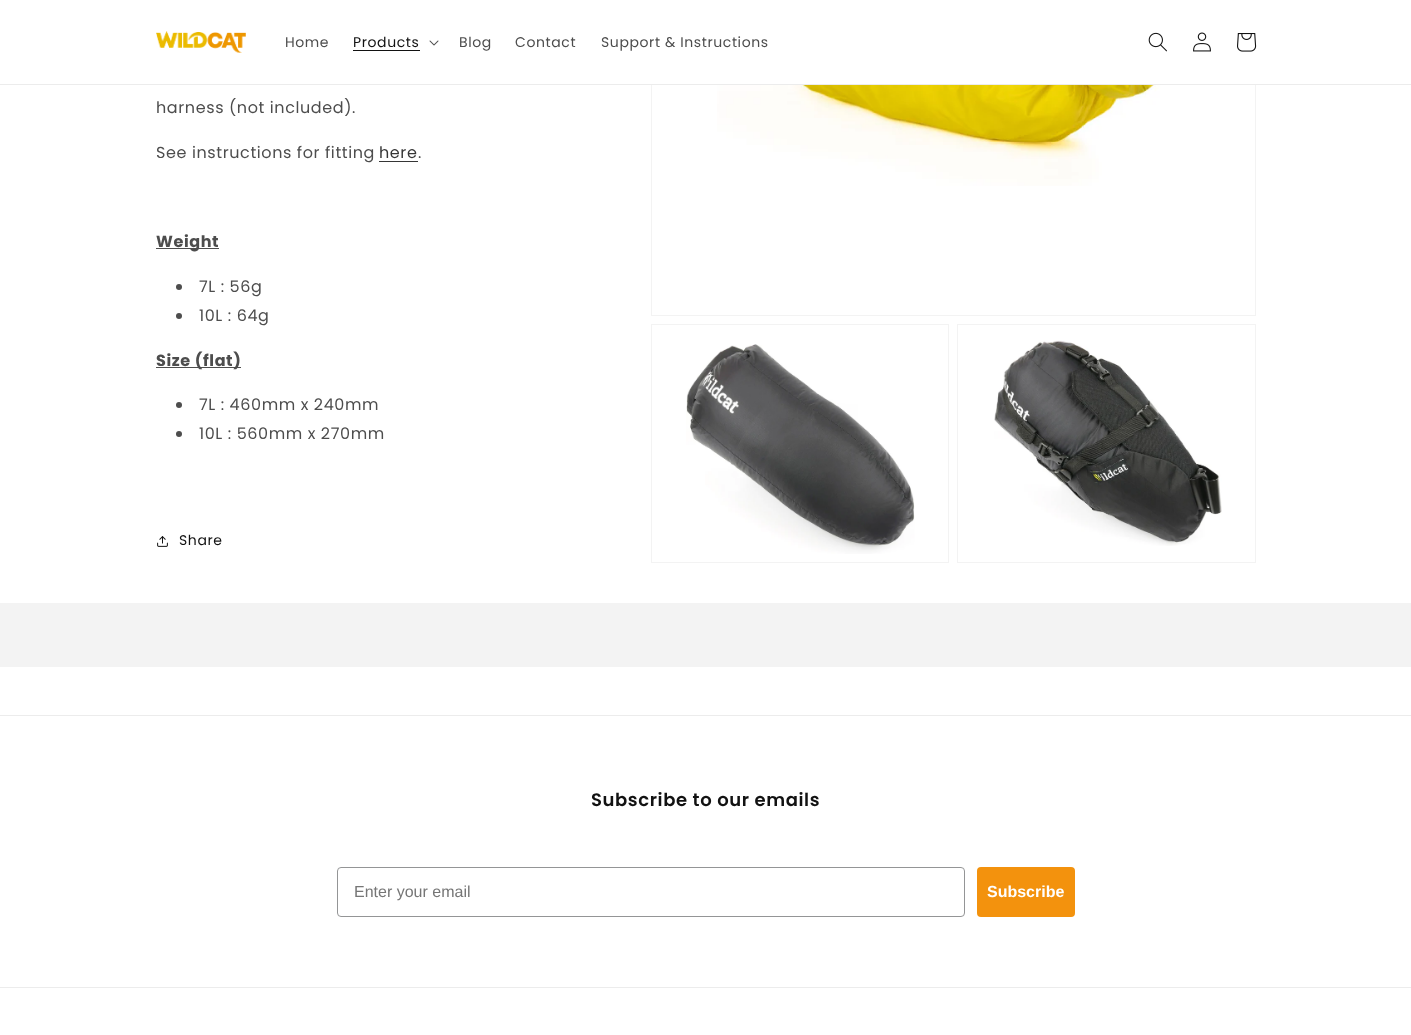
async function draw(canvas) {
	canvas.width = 1411;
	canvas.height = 1035;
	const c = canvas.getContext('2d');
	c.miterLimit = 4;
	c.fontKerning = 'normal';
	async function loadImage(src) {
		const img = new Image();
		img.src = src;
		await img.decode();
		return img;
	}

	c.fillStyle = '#fff';
	c.fillRect(0, 0, 1411, 1035);
	c.strokeStyle = '#f3f3f3';
	c.strokeRect(651.5, -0.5, 604, 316);
	c.fillRect(651, 0, 605, 84);
	c.fillStyle = '#ececec';
	c.fillRect(0, 84, 1411, 1);
	c.drawImage(await loadImage('img1.png'), 156, 31, 90, 22);
	c.letterSpacing = '0.6px';
	c.font = '14px Poppins';
	c.fillStyle = '#4d4d4d';
	c.fillText('Home', 285, 47);
	c.fillStyle = '#121212';
	c.fillText('Products', 353, 47);
	c.fillRect(353, 50, 67, 1);
	c.drawImage(await loadImage('img2.png'), 429, 40, 10, 6);
	c.fillStyle = '#4d4d4d';
	for (const [text, x, y] of [
		['Blog', 459, 47],
		['Contact', 515, 47],
		['Support & Instructions', 601, 47],
	]) {
		c.fillText(text, x, y);
	}
	c.drawImage(await loadImage('img3.png'), 1148, 32, 19, 20);
	c.drawImage(await loadImage('img4.png'), 1193, 32, 18, 20);
	c.drawImage(await loadImage('img5.png'), 1237, 33, 20, 19);
	c.font = '16px Poppins';
	c.fillText('harness (not included).', 156, 113);
	c.fillText('See instructions for fitting', 156, 158);
	c.fillStyle = '#363636';
	c.fillText('here', 379, 158);
	c.fillRect(379, 161, 39, 1);
	c.fillStyle = '#4d4d4d';
	c.fillText('.', 418, 158);
	c.fillRect(156, 248, 63, 1);
	c.font = 'bold 16px Poppins';
	c.fillText('Weight', 156, 247);
	c.beginPath();
	c.arc(179, 287, 3, 0, 2 * Math.PI);
	c.fill();
	c.font = '16px Poppins';
	c.fillText('7L : 56g', 199, 292);
	c.beginPath();
	c.arc(179, 316, 3, 0, 2 * Math.PI);
	c.fill();
	c.fillText('10L : 64g', 199, 321);
	c.fillRect(156, 367, 85, 1);
	c.font = 'bold 16px Poppins';
	c.fillText('Size (flat)', 156, 366);
	c.beginPath();
	c.arc(179, 405, 3, 0, 2 * Math.PI);
	c.fill();
	c.font = '16px Poppins';
	c.fillText('7L : 460mm x 240mm', 199, 410);
	c.beginPath();
	c.arc(179, 434, 3, 0, 2 * Math.PI);
	c.fill();
	c.fillText('10L : 560mm x 270mm', 199, 439);
	c.drawImage(await loadImage('img6.png'), 157, 536, 11, 11);
	c.font = '14px Poppins';
	c.fillStyle = '#121212';
	c.fillText('Share', 179, 545);
	c.drawImage(await loadImage('img7.png'), 717, 85, 469, 101);
	c.strokeRect(651.5, 324.5, 297, 238);
	c.drawImage(await loadImage('img8.png'), 686, 344, 229, 210);
	c.strokeRect(957.5, 324.5, 298, 238);
	c.drawImage(await loadImage('img9.png'), 994, 340, 228, 206);
	c.fillStyle = '#f3f3f3';
	c.fillRect(0, 603, 1411, 64);
	c.fillStyle = '#ececec';
	c.fillRect(0, 715, 1411, 1);
	c.font = '600 18px Poppins';
	c.fillStyle = '#121212';
	c.fillText('Subscribe to our emails', 591, 806);
	c.beginPath();
	c.roundRect(337.5, 867.5, 627, 49, 3.5);
	c.strokeStyle = '#949596';
	c.stroke();
	c.letterSpacing = '0px';
	c.font = '16px Liberation Sans';
	c.fillStyle = '#767676';
	c.fillText('Enter your email', 354, 897);
	c.fillStyle = '#f3920d';
	c.beginPath();
	c.roundRect(977, 867, 98, 50, 4);
	c.fill();
	c.font = 'bold 16px Liberation Sans';
	c.fillStyle = '#fff';
	c.fillText('Subscribe', 987, 897);
	c.fillStyle = '#ececec';
	c.fillRect(0, 987, 1411, 1);
}

draw(document.querySelector('canvas'));
